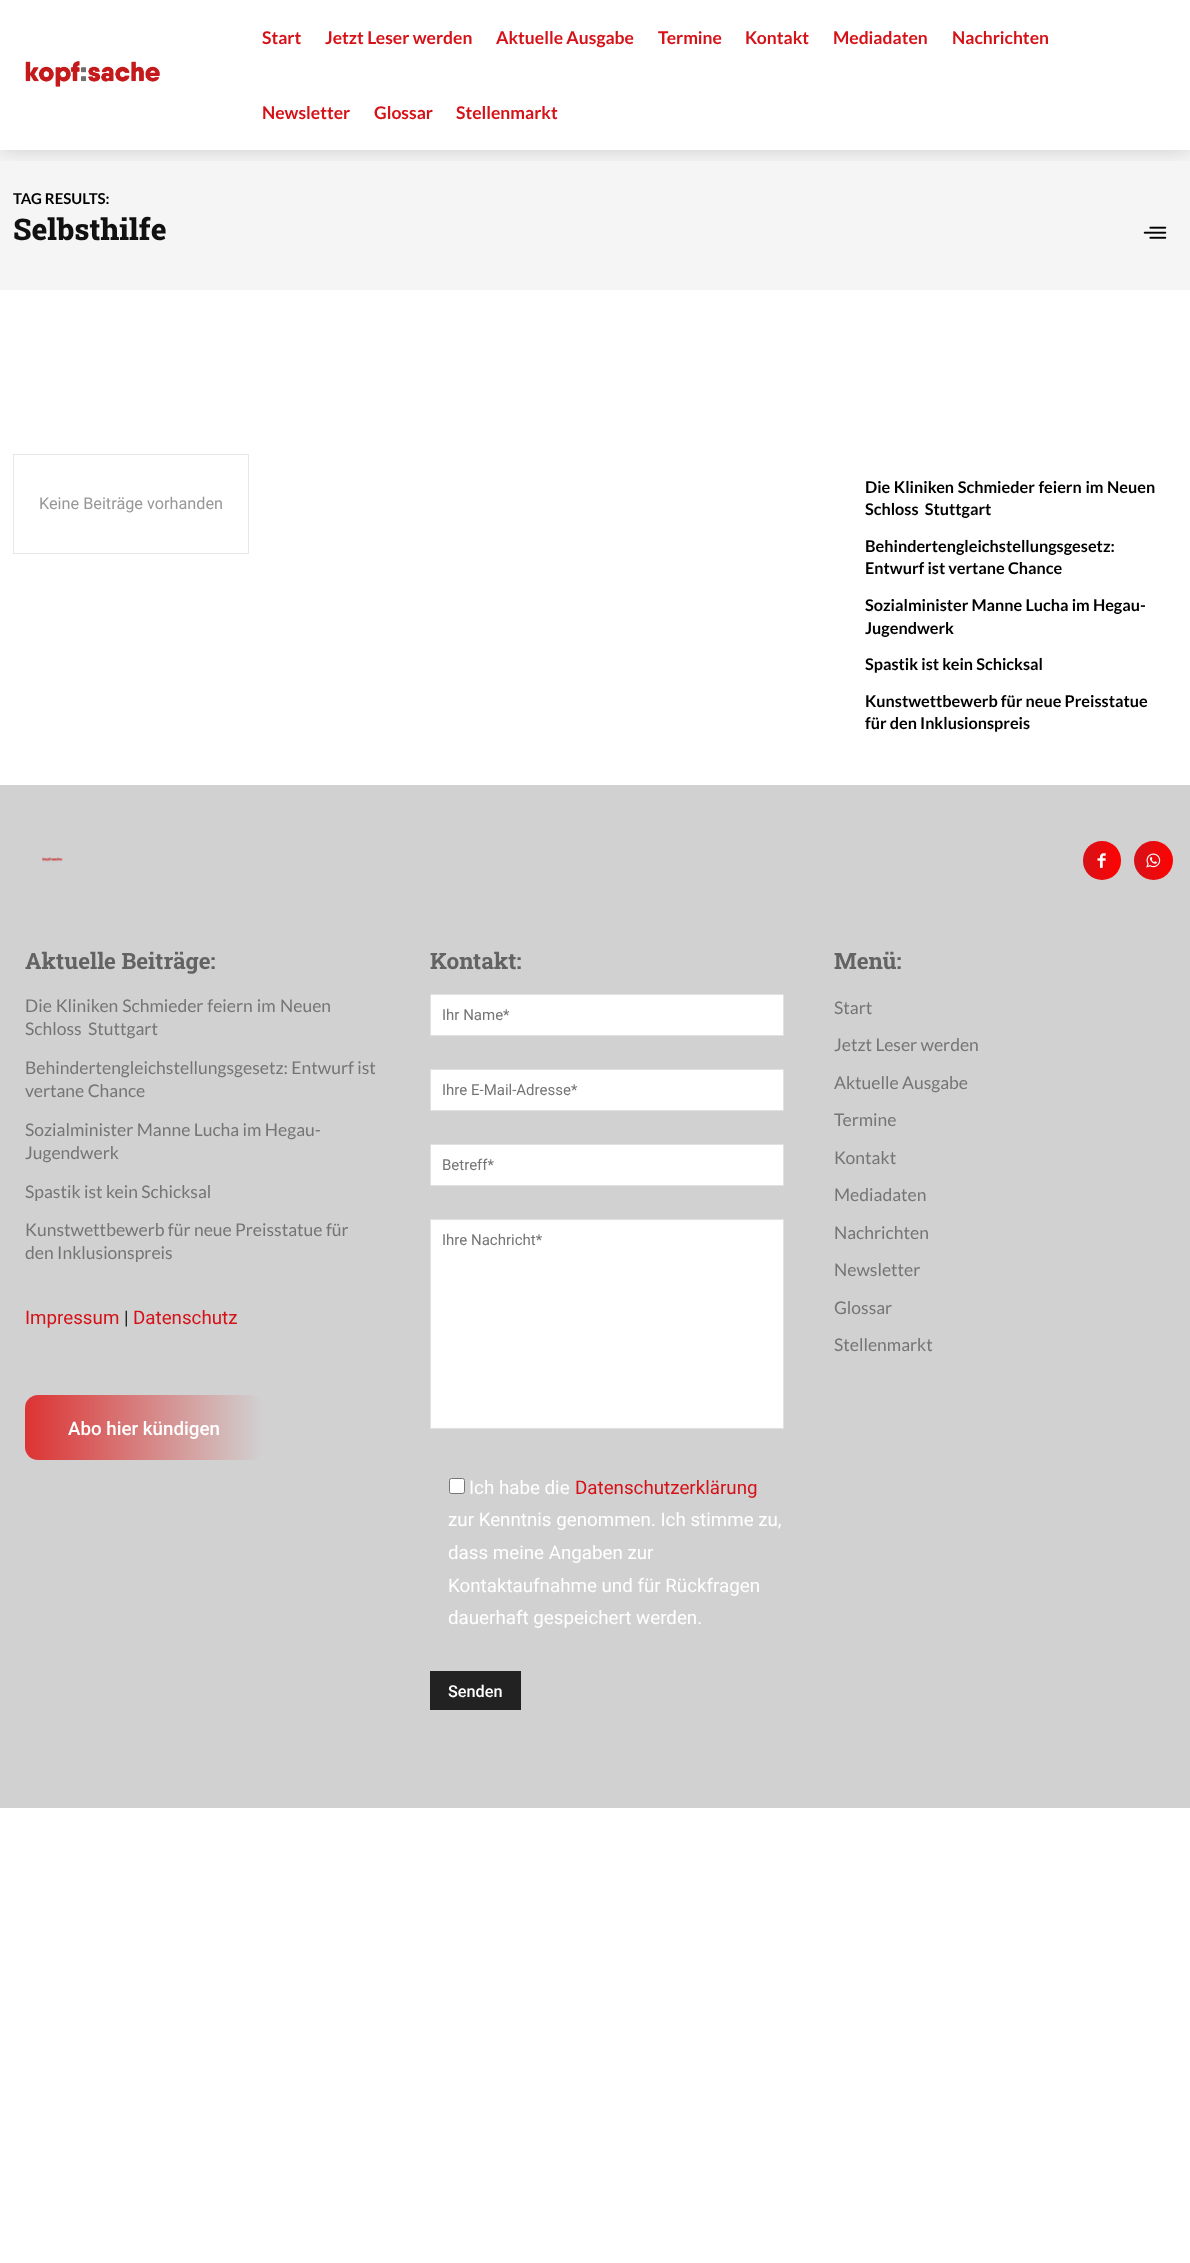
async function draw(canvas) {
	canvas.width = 1190;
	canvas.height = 2263;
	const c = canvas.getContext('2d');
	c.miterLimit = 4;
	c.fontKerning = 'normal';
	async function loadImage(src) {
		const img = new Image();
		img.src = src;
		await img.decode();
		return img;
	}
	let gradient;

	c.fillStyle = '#fff';
	c.fillRect(0, 0, 1190, 2263);
	c.fillStyle = '#f5f5f5';
	c.fillRect(0, 150, 1190, 140);
	c.save();
	c.beginPath();
	c.rect(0, 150, 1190, 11);
	c.clip();
	c.fillStyle = '#00000029';
	c.filter = 'blur(10px)';
	c.beginPath();
	c.rect(0, 0, 1190, 150);
	c.fill();
	c.filter = 'none';
	c.restore();
	c.drawImage(await loadImage('img1.png'), 25, 61, 135, 26);
	c.font = 'bold 17.5px Lato';
	c.fillStyle = '#d51218';
	for (const [text, x, y] of [
		['Start', 262, 44],
		['Jetzt Leser werden', 325, 44],
		['Aktuelle Ausgabe', 496, 44],
		['Termine', 658, 44],
		['Kontakt', 745, 44],
		['Mediadaten', 833, 44],
		['Nachrichten', 952, 44],
		['Newsletter', 262, 119],
		['Glossar', 374, 119],
		['Stellenmarkt', 456, 119],
	]) {
		c.fillText(text, x, y);
	}
	c.font = 'bold 15px Lato';
	c.fillStyle = '#000';
	c.fillText('TAG RESULTS:', 13, 204);
	c.font = '800 30px Roboto Slab';
	c.fillStyle = '#111';
	c.fillText('Selbsthilfe', 13, 240);
	c.drawImage(await loadImage('img2.png'), 1143, 226, 24, 13);
	c.strokeStyle = '#e8e8e8';
	c.strokeRect(13.5, 454.5, 235, 99);
	c.font = '16.25px Roboto';
	c.fillStyle = '#979797';
	c.fillText('Keine Beiträge vorhanden', 39, 509);
	c.wordSpacing = '0.5px';
	c.font = 'bold 16.25px Lato';
	c.fillStyle = '#000';
	c.fillText('Die Kliniken Schmieder feiern im', 865, 493);
	c.wordSpacing = '0px';
	c.fillText('Neuen', 1107, 493);
	c.wordSpacing = '3px';
	c.fillText('Schloss Stuttgart', 865, 515);
	c.wordSpacing = '0px';
	for (const [text, x, y] of [
		['Behindertengleichstellungsgesetz:', 865, 552],
		['Entwurf ist vertane Chance', 865, 574],
		['Sozialminister Manne Lucha im Hegau-', 865, 611],
		['Jugendwerk', 865, 634],
		['Spastik ist kein Schicksal', 865, 670],
		['Kunstwettbewerb für neue Preisstatue', 865, 707],
		['für den Inklusionspreis', 865, 729],
	]) {
		c.fillText(text, x, y);
	}
	c.fillStyle = '#d1d1d1';
	c.fillRect(0, 785, 1190, 1023);
	c.drawImage(await loadImage('img3.png'), 42, 857, 21, 5);
	gradient = c.createLinearGradient(1121, 861, 1083, 861);
	gradient.addColorStop(0, '#ff0202');
	gradient.addColorStop(1, '#d51218');
	c.fillStyle = gradient;
	c.beginPath();
	c.roundRect(1083, 841, 38, 39, 19);
	c.fill();
	c.drawImage(await loadImage('img4.png'), 1097, 853, 9, 15);
	gradient = c.createLinearGradient(1173, 861, 1134, 861);
	gradient.addColorStop(0, '#ff0202');
	gradient.addColorStop(1, '#d51218');
	c.fillStyle = gradient;
	c.beginPath();
	c.arc(1153.5, 860.5, 19.5, 0, 2 * Math.PI);
	c.fill();
	c.drawImage(await loadImage('img5.png'), 1146, 853, 15, 15);
	c.font = 'bold 22.5px Roboto Slab';
	c.fillStyle = '#636363';
	c.fillText('Aktuelle Beiträge:', 25, 969);
	c.wordSpacing = '0.5px';
	c.font = '17.5px Lato';
	c.fillStyle = '#757575';
	c.fillText('Die Kliniken Schmieder feiern im', 25, 1012);
	c.wordSpacing = '0px';
	c.fillText('Neuen', 280, 1012);
	c.wordSpacing = '3px';
	c.fillText('Schloss Stuttgart', 25, 1035);
	c.wordSpacing = '0px';
	for (const [text, x, y] of [
		['Behindertengleichstellungsgesetz: Entwurf ist', 25, 1074],
		['vertane Chance', 25, 1097],
		['Sozialminister Manne Lucha im Hegau-', 25, 1136],
		['Jugendwerk', 25, 1159],
		['Spastik ist kein Schicksal', 25, 1198],
		['Kunstwettbewerb für neue Preisstatue für', 25, 1236],
		['den Inklusionspreis', 25, 1259],
	]) {
		c.fillText(text, x, y);
	}
	c.font = '18.75px Roboto';
	c.fillStyle = '#d51218';
	c.fillText('Impressum', 25, 1324);
	c.fillStyle = '#222';
	c.fillText('|', 124, 1324);
	c.fillStyle = '#d51218';
	c.fillText('Datenschutz', 133, 1324);
	gradient = c.createLinearGradient(263, 1428, 25, 1428);
	gradient.addColorStop(0, '#d1d1d1');
	gradient.addColorStop(1, '#d33');
	c.fillStyle = gradient;
	c.beginPath();
	c.roundRect(25, 1395, 238, 65, 13);
	c.fill();
	c.font = '500 18.75px Roboto';
	c.fillStyle = '#fff';
	c.fillText('Abo hier kündigen', 68, 1435);
	c.font = 'bold 22.5px Roboto Slab';
	c.fillStyle = '#636363';
	c.fillText('Kontakt:', 430, 969);
	c.fillStyle = '#fff';
	c.beginPath();
	c.rect(430.5, 994.5, 353, 41);
	c.fill();
	c.strokeStyle = '#e1e1e1';
	c.stroke();
	c.font = '15px Roboto';
	c.fillStyle = '#757575';
	c.fillText('Ihr Name*', 442, 1020);
	c.fillStyle = '#fff';
	c.beginPath();
	c.rect(430.5, 1069.5, 353, 41);
	c.fill();
	c.stroke();
	c.fillStyle = '#757575';
	c.fillText('Ihre E-Mail-Adresse*', 442, 1095);
	c.fillStyle = '#fff';
	c.beginPath();
	c.rect(430.5, 1144.5, 353, 41);
	c.fill();
	c.stroke();
	c.fillStyle = '#757575';
	c.fillText('Betreff*', 442, 1170);
	c.fillStyle = '#fff';
	c.beginPath();
	c.rect(430.5, 1219.5, 353, 209);
	c.fill();
	c.stroke();
	c.fillStyle = '#757575';
	c.fillText('Ihre Nachricht*', 442, 1245);
	c.fillStyle = '#fff';
	c.beginPath();
	c.roundRect(449.5, 1478.5, 15, 15, 2);
	c.fill();
	c.strokeStyle = '#767676';
	c.stroke();
	c.font = '18.75px Roboto';
	c.fillText('Ich habe die', 469, 1494);
	c.fillStyle = '#d51218';
	c.fillText('Datenschutzerklärung', 575, 1494);
	c.fillStyle = '#fff';
	for (const [text, x, y] of [
		['zur Kenntnis genommen. Ich stimme zu,', 448, 1526],
		['dass meine Angaben zur', 448, 1559],
		['Kontaktaufnahme und für Rückfragen', 448, 1592],
		['dauerhaft gespeichert werden.', 448, 1624],
	]) {
		c.fillText(text, x, y);
	}
	c.fillStyle = '#222';
	c.fillRect(430, 1671, 91, 39);
	c.font = '500 16.25px Roboto';
	c.fillStyle = '#fff';
	c.fillText('Senden', 448, 1697);
	c.font = 'bold 22.5px Roboto Slab';
	c.fillStyle = '#636363';
	c.fillText('Menü:', 834, 969);
	c.font = '17.5px Lato';
	c.fillStyle = '#757575';
	for (const [text, x, y] of [
		['Start', 834, 1014],
		['Jetzt Leser werden', 834, 1051],
		['Aktuelle Ausgabe', 834, 1089],
		['Termine', 834, 1126],
		['Kontakt', 834, 1164],
		['Mediadaten', 834, 1201],
		['Nachrichten', 834, 1239],
		['Newsletter', 834, 1276],
		['Glossar', 834, 1314],
		['Stellenmarkt', 834, 1351],
	]) {
		c.fillText(text, x, y);
	}
}

draw(document.querySelector('canvas'));
